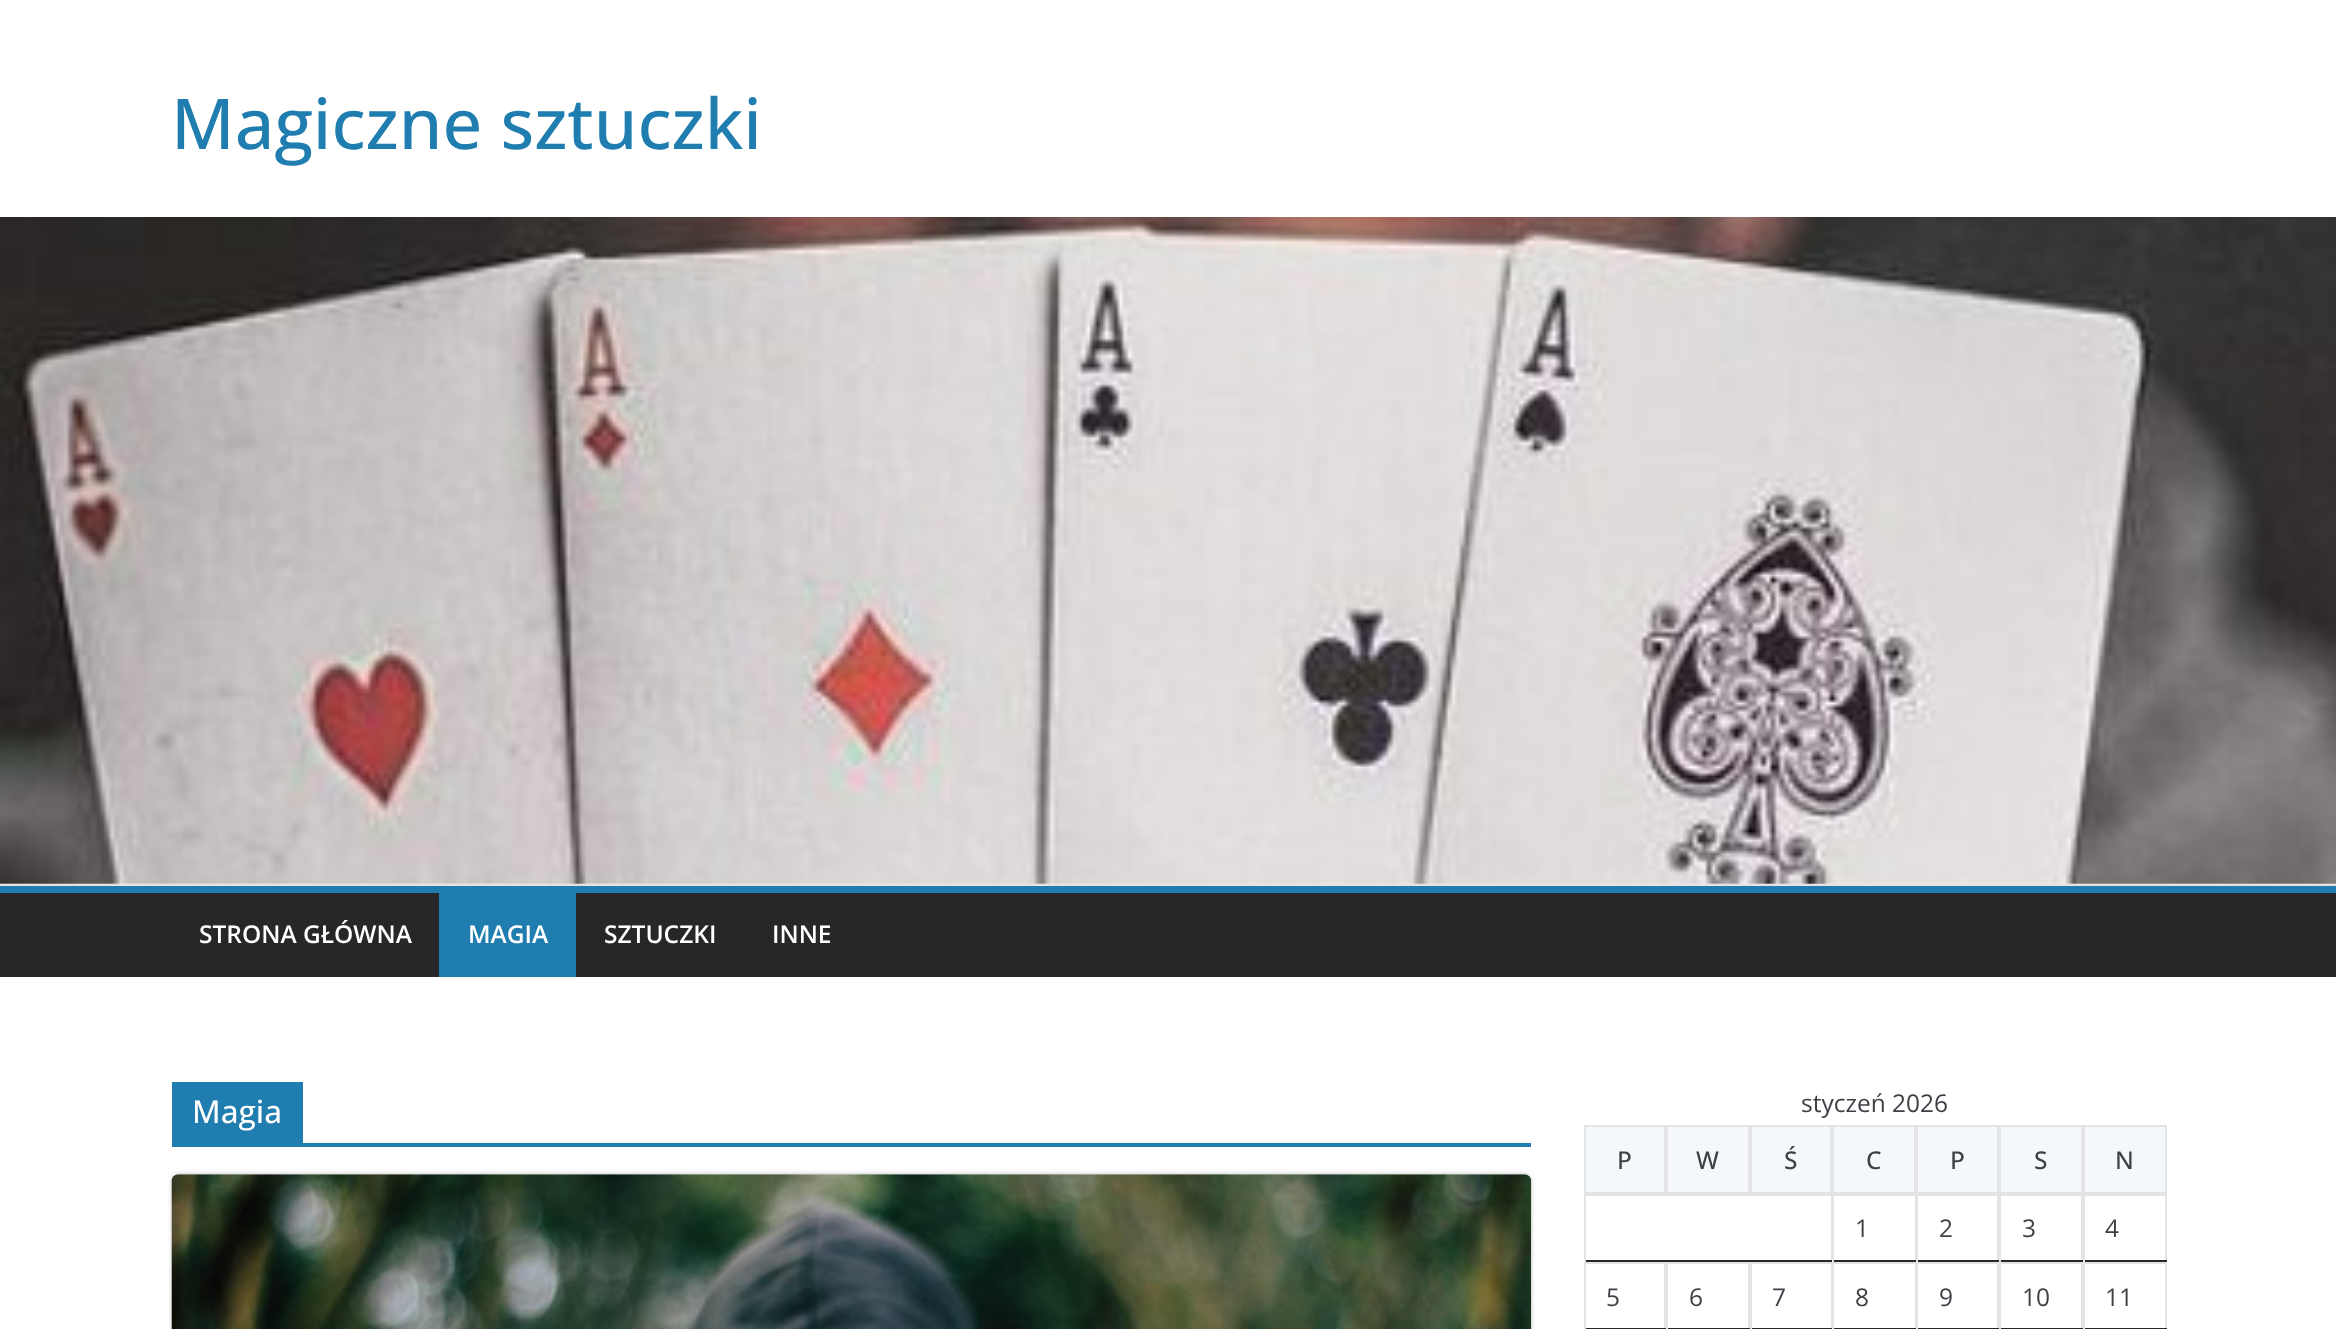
async function draw(canvas) {
	canvas.width = 2336;
	canvas.height = 1329;
	const c = canvas.getContext('2d');
	c.miterLimit = 4;
	c.fontKerning = 'normal';
	async function loadImage(src) {
		const img = new Image();
		img.src = src;
		await img.decode();
		return img;
	}

	c.fillStyle = '#fff';
	c.fillRect(0, 0, 2336, 1329);
	c.font = '500 70px Open Sans';
	c.fillStyle = '#207daf';
	c.fillText('Magiczne sztuczki', 171, 149);
	c.drawImage(await loadImage('img1.png'), 0, 217, 2336, 667);
	for (const [x, y, w, h, color] of [
		[0, 884, 2336, 2, '#e4e4e7'],
		[0, 893, 2336, 84, '#27272a'],
		[0, 886, 2336, 7, '#207daf'],
	]) {
		c.fillStyle = color;
		c.fillRect(x, y, w, h);
	}
	c.font = '600 24.5px Open Sans';
	c.fillStyle = '#fff';
	c.fillText('STRONA GŁÓWNA', 199, 943);
	c.fillStyle = '#207daf';
	c.fillRect(439, 893, 137, 84);
	c.fillStyle = '#fff';
	for (const [text, x, y] of [
		['MAGIA', 468, 943],
		['SZTUCZKI', 604, 943],
		['INNE', 772, 943],
	]) {
		c.fillText(text, x, y);
	}
	c.fillStyle = '#207daf';
	c.fillRect(172, 1143, 1359, 4);
	c.fillRect(172, 1082, 131, 61);
	c.font = '500 31.5px Open Sans';
	c.fillStyle = '#fff';
	c.fillText('Magia', 192, 1123);
	c.fillStyle = '#0000003d';
	c.filter = 'blur(2px)';
	c.beginPath();
	c.roundRect(172, 1174, 1359, 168, 7);
	c.fill();
	c.filter = 'none';
	c.drawImage(await loadImage('img2.png'), 171, 1174, 1361, 155);
	c.font = '24.5px Open Sans';
	c.fillStyle = '#3f3f46';
	c.fillText('styczeń 2026', 1801, 1112);
	c.fillStyle = '#f4f8fb';
	c.fillRect(1586, 1127, 579, 65);
	c.strokeStyle = '#e4e4e7';
	c.lineWidth = 2;
	c.strokeRect(1585, 1126, 80, 67);
	c.font = '500 24.5px Open Sans';
	c.fillStyle = '#3f3f46';
	c.fillText('P', 1617, 1169);
	c.strokeRect(1667, 1126, 82, 67);
	c.fillText('W', 1696, 1169);
	c.strokeRect(1751, 1126, 80, 67);
	c.fillText('Ś', 1784, 1169);
	c.strokeRect(1833, 1126, 82, 67);
	c.fillText('C', 1866, 1169);
	c.strokeRect(1917, 1126, 81, 67);
	c.fillText('P', 1950, 1169);
	c.strokeRect(2000, 1126, 82, 67);
	c.fillText('S', 2034, 1169);
	c.strokeRect(2084, 1126, 82, 67);
	c.fillText('N', 2115, 1169);
	for (const [x, y, w, h, color] of [
		[1584, 1194, 583, 2, '#e4e4e7'],
		[1831, 1194, 1, 68, '#e4e4e7'],
		[1584, 1260, 248, 2, '#27272a'],
		[1584, 1194, 2, 68, '#e4e4e7'],
		[1915, 1194, 1, 68, '#e4e4e7'],
		[1832, 1260, 84, 2, '#27272a'],
		[1832, 1194, 2, 68, '#e4e4e7'],
	]) {
		c.fillStyle = color;
		c.fillRect(x, y, w, h);
	}
	c.font = '24.5px Open Sans';
	c.fillStyle = '#3f3f46';
	c.fillText('1', 1855, 1237);
	for (const [x, y, w, h, color] of [
		[1997, 1194, 2, 68, '#e4e4e7'],
		[1916, 1260, 83, 2, '#27272a'],
		[1916, 1194, 2, 68, '#e4e4e7'],
	]) {
		c.fillStyle = color;
		c.fillRect(x, y, w, h);
	}
	c.fillStyle = '#3f3f46';
	c.fillText('2', 1939, 1237);
	for (const [x, y, w, h, color] of [
		[2081, 1194, 2, 68, '#e4e4e7'],
		[1999, 1260, 84, 2, '#27272a'],
		[1999, 1194, 2, 68, '#e4e4e7'],
	]) {
		c.fillStyle = color;
		c.fillRect(x, y, w, h);
	}
	c.fillStyle = '#3f3f46';
	c.fillText('3', 2022, 1237);
	for (const [x, y, w, h, color] of [
		[2165, 1194, 2, 68, '#e4e4e7'],
		[2083, 1260, 84, 2, '#27272a'],
		[2083, 1194, 2, 68, '#e4e4e7'],
	]) {
		c.fillStyle = color;
		c.fillRect(x, y, w, h);
	}
	c.fillStyle = '#3f3f46';
	c.fillText('4', 2105, 1237);
	for (const [x, y, w, h, color] of [
		[1584, 1262, 583, 2, '#e4e4e7'],
		[1664, 1262, 2, 67, '#e4e4e7'],
		[1584, 1328, 82, 1, '#27272a'],
		[1584, 1262, 2, 67, '#e4e4e7'],
	]) {
		c.fillStyle = color;
		c.fillRect(x, y, w, h);
	}
	c.fillStyle = '#3f3f46';
	c.fillText('5', 1606, 1306);
	for (const [x, y, w, h, color] of [
		[1748, 1262, 2, 67, '#e4e4e7'],
		[1666, 1328, 84, 1, '#27272a'],
		[1666, 1262, 2, 67, '#e4e4e7'],
	]) {
		c.fillStyle = color;
		c.fillRect(x, y, w, h);
	}
	c.fillStyle = '#3f3f46';
	c.fillText('6', 1689, 1306);
	for (const [x, y, w, h, color] of [
		[1831, 1262, 1, 67, '#e4e4e7'],
		[1750, 1328, 82, 1, '#27272a'],
		[1750, 1262, 2, 67, '#e4e4e7'],
	]) {
		c.fillStyle = color;
		c.fillRect(x, y, w, h);
	}
	c.fillStyle = '#3f3f46';
	c.fillText('7', 1772, 1306);
	for (const [x, y, w, h, color] of [
		[1915, 1262, 1, 67, '#e4e4e7'],
		[1832, 1328, 84, 1, '#27272a'],
		[1832, 1262, 2, 67, '#e4e4e7'],
	]) {
		c.fillStyle = color;
		c.fillRect(x, y, w, h);
	}
	c.fillStyle = '#3f3f46';
	c.fillText('8', 1855, 1306);
	for (const [x, y, w, h, color] of [
		[1997, 1262, 2, 67, '#e4e4e7'],
		[1916, 1328, 83, 1, '#27272a'],
		[1916, 1262, 2, 67, '#e4e4e7'],
	]) {
		c.fillStyle = color;
		c.fillRect(x, y, w, h);
	}
	c.fillStyle = '#3f3f46';
	c.fillText('9', 1939, 1306);
	for (const [x, y, w, h, color] of [
		[2081, 1262, 2, 67, '#e4e4e7'],
		[1999, 1328, 84, 1, '#27272a'],
		[1999, 1262, 2, 67, '#e4e4e7'],
	]) {
		c.fillStyle = color;
		c.fillRect(x, y, w, h);
	}
	c.fillStyle = '#3f3f46';
	c.fillText('10', 2022, 1306);
	for (const [x, y, w, h, color] of [
		[2165, 1262, 2, 67, '#e4e4e7'],
		[2083, 1328, 84, 1, '#27272a'],
		[2083, 1262, 2, 67, '#e4e4e7'],
	]) {
		c.fillStyle = color;
		c.fillRect(x, y, w, h);
	}
	c.fillStyle = '#3f3f46';
	c.fillText('11', 2105, 1306);
}

draw(document.querySelector('canvas'));
